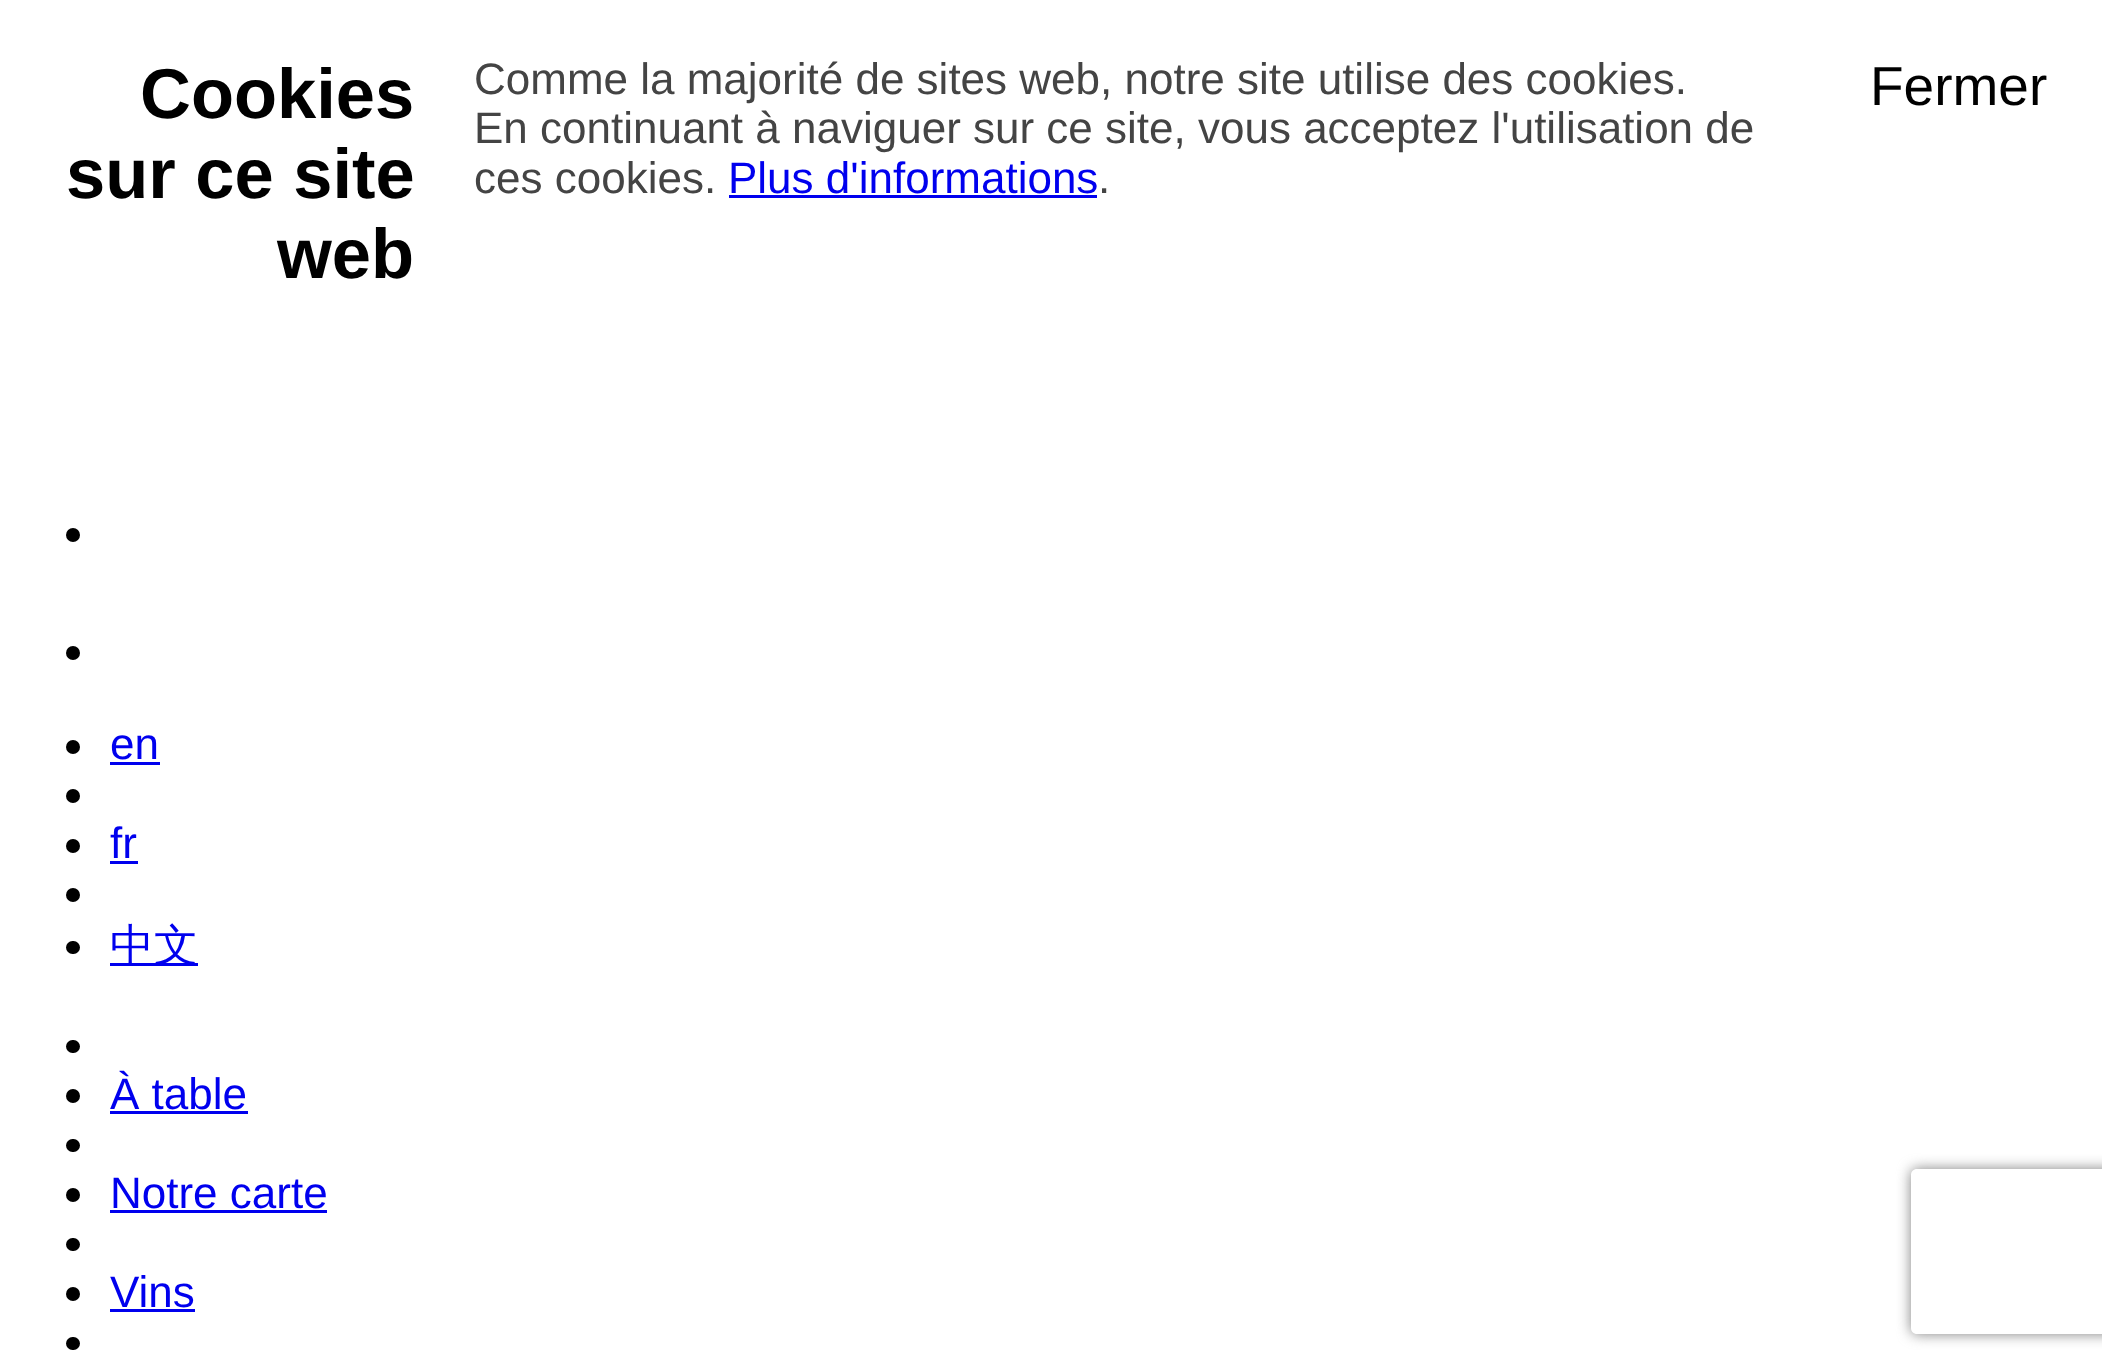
async function draw(canvas) {
	canvas.width = 2102;
	canvas.height = 1372;
	const c = canvas.getContext('2d');
	c.miterLimit = 4;
	c.fontKerning = 'normal';

	c.fillStyle = '#fff';
	c.fillRect(0, 0, 2102, 1372);
	c.font = 'bold 70.5px Liberation Sans';
	c.fillStyle = '#000';
	for (const [text, x, y] of [
		['Cookies', 140, 118],
		['sur ce site', 66, 198],
		['web', 277, 278],
	]) {
		c.fillText(text, x, y);
	}
	c.font = '44px Liberation Sans';
	c.fillStyle = '#444';
	for (const [text, x, y] of [
		['Comme la majorité de sites web, notre site utilise des cookies.', 474, 94],
		['En continuant à naviguer sur ce site, vous acceptez l\'utilisation de', 474, 143],
		['ces cookies.', 474, 193],
	]) {
		c.fillText(text, x, y);
	}
	c.fillStyle = '#00e';
	c.fillText('Plus d\'informations', 728, 193);
	c.fillRect(729, 195, 368, 3);
	c.fillStyle = '#444';
	c.fillText('.', 1098, 193);
	c.font = '55px Liberation Sans';
	c.fillStyle = '#000';
	c.fillText('Fermer', 1870, 105);
	c.beginPath();
	c.arc(73, 535, 7, 0, 2 * Math.PI);
	c.fill();
	c.beginPath();
	c.arc(73, 653, 7, 0, 2 * Math.PI);
	c.fill();
	c.beginPath();
	c.arc(73, 747, 7, 0, 2 * Math.PI);
	c.fill();
	c.font = '44px Liberation Sans';
	c.fillStyle = '#00e';
	c.fillText('en', 110, 759);
	c.fillRect(110, 762, 50, 3);
	c.fillStyle = '#000';
	c.beginPath();
	c.arc(73, 796, 7, 0, 2 * Math.PI);
	c.fill();
	c.beginPath();
	c.arc(73, 846, 7, 0, 2 * Math.PI);
	c.fill();
	c.fillStyle = '#00e';
	c.fillText('fr', 110, 858);
	c.fillRect(110, 861, 28, 3);
	c.fillStyle = '#000';
	c.beginPath();
	c.arc(73, 895, 7, 0, 2 * Math.PI);
	c.fill();
	c.beginPath();
	c.roundRect(66, 941, 14, 13, 6.5);
	c.fill();
	c.fillStyle = '#00e';
	c.fillRect(110, 963, 88, 3);
	c.font = '500 44px WenQuanYi Zen Hei';
	c.fillText('中文', 110, 960);
	c.fillStyle = '#000';
	c.beginPath();
	c.roundRect(66, 1040, 14, 13, 6.5);
	c.fill();
	c.beginPath();
	c.arc(73, 1096, 7, 0, 2 * Math.PI);
	c.fill();
	c.font = '44px Liberation Sans';
	c.fillStyle = '#00e';
	c.fillText('À table', 110, 1109);
	c.fillRect(110, 1111, 138, 3);
	c.fillStyle = '#000';
	c.beginPath();
	c.roundRect(66, 1139, 14, 13, 6.5);
	c.fill();
	c.beginPath();
	c.arc(73, 1195, 7, 0, 2 * Math.PI);
	c.fill();
	c.fillStyle = '#00e';
	c.fillText('Notre carte', 110, 1208);
	c.fillRect(110, 1210, 217, 3);
	c.fillStyle = '#000';
	c.beginPath();
	c.roundRect(66, 1238, 14, 13, 6.5);
	c.fill();
	c.beginPath();
	c.arc(73, 1294, 7, 0, 2 * Math.PI);
	c.fill();
	c.fillStyle = '#00e';
	c.fillText('Vins', 110, 1307);
	c.fillRect(110, 1309, 85, 3);
	c.fillStyle = '#000';
	c.beginPath();
	c.roundRect(66, 1337, 14, 13, 6.5);
	c.fill();
	c.save();
	c.beginPath();
	c.moveTo(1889, 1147);
	c.lineTo(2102, 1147);
	c.lineTo(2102, 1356);
	c.lineTo(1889, 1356);
	c.closePath();
	c.moveTo(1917, 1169);
	c.lineTo(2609, 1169);
	c.bezierCurveTo(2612.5, 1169, 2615, 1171.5, 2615, 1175);
	c.lineTo(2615, 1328);
	c.bezierCurveTo(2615, 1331.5, 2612.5, 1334, 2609, 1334);
	c.lineTo(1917, 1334);
	c.bezierCurveTo(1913.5, 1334, 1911, 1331.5, 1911, 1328);
	c.lineTo(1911, 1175);
	c.bezierCurveTo(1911, 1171.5, 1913.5, 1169, 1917, 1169);
	c.closePath();
	c.clip('evenodd');
	c.fillStyle = '#808080';
	c.filter = 'blur(7px)';
	c.beginPath();
	c.roundRect(1911, 1169, 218, 165, 6);
	c.fill();
	c.filter = 'none';
	c.restore();
}

draw(document.querySelector('canvas'));
